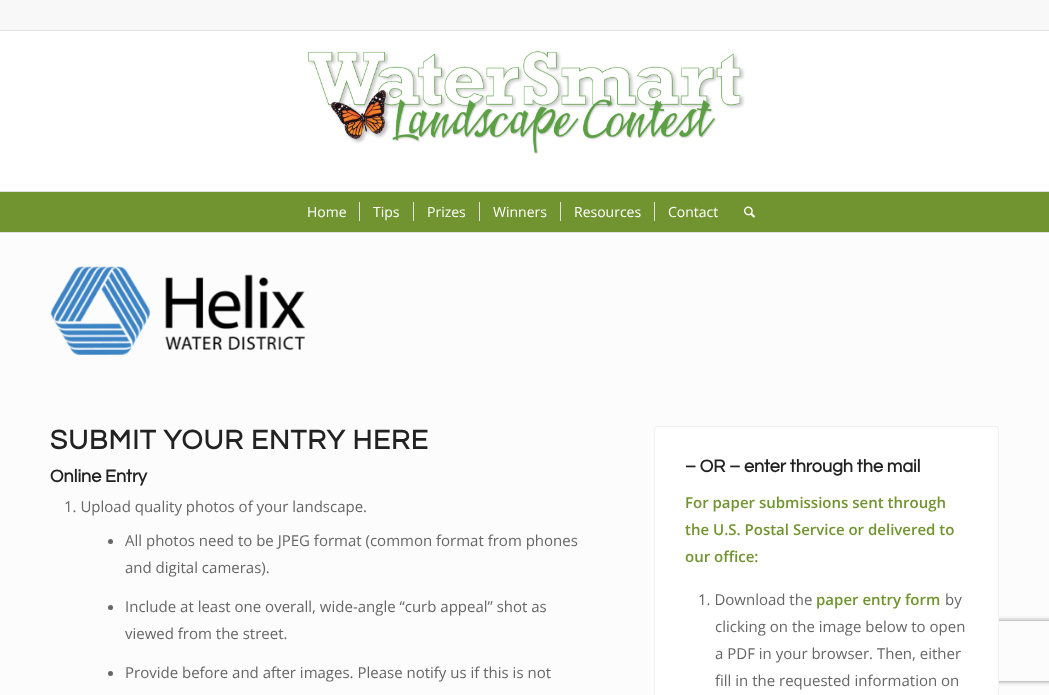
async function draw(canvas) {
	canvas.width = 1049;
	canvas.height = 695;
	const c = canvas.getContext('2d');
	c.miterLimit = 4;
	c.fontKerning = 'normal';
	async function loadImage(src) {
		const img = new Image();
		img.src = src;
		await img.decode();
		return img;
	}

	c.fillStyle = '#fff';
	c.fillRect(0, 0, 1049, 695);
	for (const [x, y, w, h, color] of [
		[0, 0, 1049, 30, '#f8f8f8'],
		[0, 30, 1049, 1, '#e1e1e1'],
		[0, 232, 1049, 1, '#e1e1e1'],
	]) {
		c.fillStyle = color;
		c.fillRect(x, y, w, h);
	}
	c.drawImage(await loadImage('img1.png'), 307, 51, 438, 104);
	c.fillStyle = '#719430';
	c.fillRect(0, 192, 1049, 40);
	c.fillStyle = '#e1e1e1';
	c.fillRect(0, 191, 1049, 1);
	c.font = '14px Open Sans';
	c.fillStyle = '#fff';
	c.fillText('Home', 307, 217);
	c.fillText('Tips', 373, 217);
	c.fillStyle = '#e1e1e1';
	c.fillRect(359, 202, 1, 19);
	c.fillStyle = '#fff';
	c.fillText('Prizes', 427, 217);
	c.fillStyle = '#e1e1e1';
	c.fillRect(413, 202, 1, 19);
	c.fillStyle = '#fff';
	c.fillText('Winners', 493, 217);
	c.fillStyle = '#e1e1e1';
	c.fillRect(479, 202, 1, 19);
	c.fillStyle = '#fff';
	c.fillText('Resources', 574, 217);
	c.fillStyle = '#e1e1e1';
	c.fillRect(560, 202, 1, 19);
	c.fillStyle = '#fff';
	c.fillText('Contact', 668, 217);
	c.fillStyle = '#e1e1e1';
	c.fillRect(654, 202, 1, 19);
	c.drawImage(await loadImage('img2.png'), 744, 206, 11, 12);
	c.fillStyle = '#fcfcfc';
	c.fillRect(0, 233, 1049, 462);
	c.drawImage(await loadImage('img3.png'), 50, 266, 255, 89);
	c.letterSpacing = '1px';
	c.font = 'bold 28px Questrial';
	c.fillStyle = '#222';
	c.fillText('SUBMIT YOUR ENTRY HERE', 50, 449);
	c.letterSpacing = '0px';
	c.font = 'bold 18px Questrial';
	c.fillText('Online Entry', 50, 482);
	c.font = '15px Open Sans';
	c.fillStyle = '#666';
	c.fillText('1. Upload quality photos of your landscape.', 64, 512);
	c.beginPath();
	c.arc(110.5, 541.5, 2.5, 0, 2 * Math.PI);
	c.fill();
	c.fillText('All photos need to be JPEG format (common format from phones', 125, 546);
	c.fillText('and digital cameras).', 125, 573);
	c.beginPath();
	c.arc(110.5, 607.5, 2.5, 0, 2 * Math.PI);
	c.fill();
	c.fillText('Include at least one overall, wide-angle “curb appeal” shot as', 125, 612);
	c.fillText('viewed from the street.', 125, 639);
	c.beginPath();
	c.arc(110.5, 673.5, 2.5, 0, 2 * Math.PI);
	c.fill();
	c.fillText('Provide before and after images. Please notify us if this is not', 125, 678);
	c.save();
	c.beginPath();
	c.moveTo(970, 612);
	c.lineTo(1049, 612);
	c.lineTo(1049, 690);
	c.lineTo(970, 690);
	c.closePath();
	c.moveTo(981, 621);
	c.lineTo(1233, 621);
	c.bezierCurveTo(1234, 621, 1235, 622, 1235, 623);
	c.lineTo(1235, 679);
	c.bezierCurveTo(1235, 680, 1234, 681, 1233, 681);
	c.lineTo(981, 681);
	c.bezierCurveTo(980, 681, 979, 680, 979, 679);
	c.lineTo(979, 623);
	c.bezierCurveTo(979, 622, 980, 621, 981, 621);
	c.closePath();
	c.clip('evenodd');
	c.fillStyle = '#808080';
	c.filter = 'blur(2.5px)';
	c.beginPath();
	c.roundRect(979, 621, 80, 60, 2);
	c.fill();
	c.filter = 'none';
	c.restore();
	c.fillStyle = '#fff';
	c.beginPath();
	c.roundRect(654.5, 426.5, 344, 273, 3.5);
	c.fill();
	c.strokeStyle = '#f1f1f1';
	c.stroke();
	c.font = 'bold 18px Questrial';
	c.fillStyle = '#222';
	c.fillText('– OR – enter through the mail', 685, 472);
	c.font = '600 15px Open Sans';
	c.fillStyle = '#719430';
	for (const [text, x, y] of [
		['For paper submissions sent through', 685, 508],
		['the U.S. Postal Service or delivered to', 685, 535],
		['our office:', 685, 562],
	]) {
		c.fillText(text, x, y);
	}
	c.font = '15px Open Sans';
	c.fillStyle = '#666';
	c.fillText('1. Download the', 698, 605);
	c.font = '600 15px Open Sans';
	c.fillStyle = '#719430';
	c.fillText('paper entry form', 816, 605);
	c.font = '15px Open Sans';
	c.fillStyle = '#666';
	for (const [text, x, y] of [
		['by', 945, 605],
		['clicking on the image below to open', 715, 632],
		['a PDF in your browser. Then, either', 715, 659],
		['fill in the requested information on', 715, 686],
	]) {
		c.fillText(text, x, y);
	}
}

draw(document.querySelector('canvas'));
